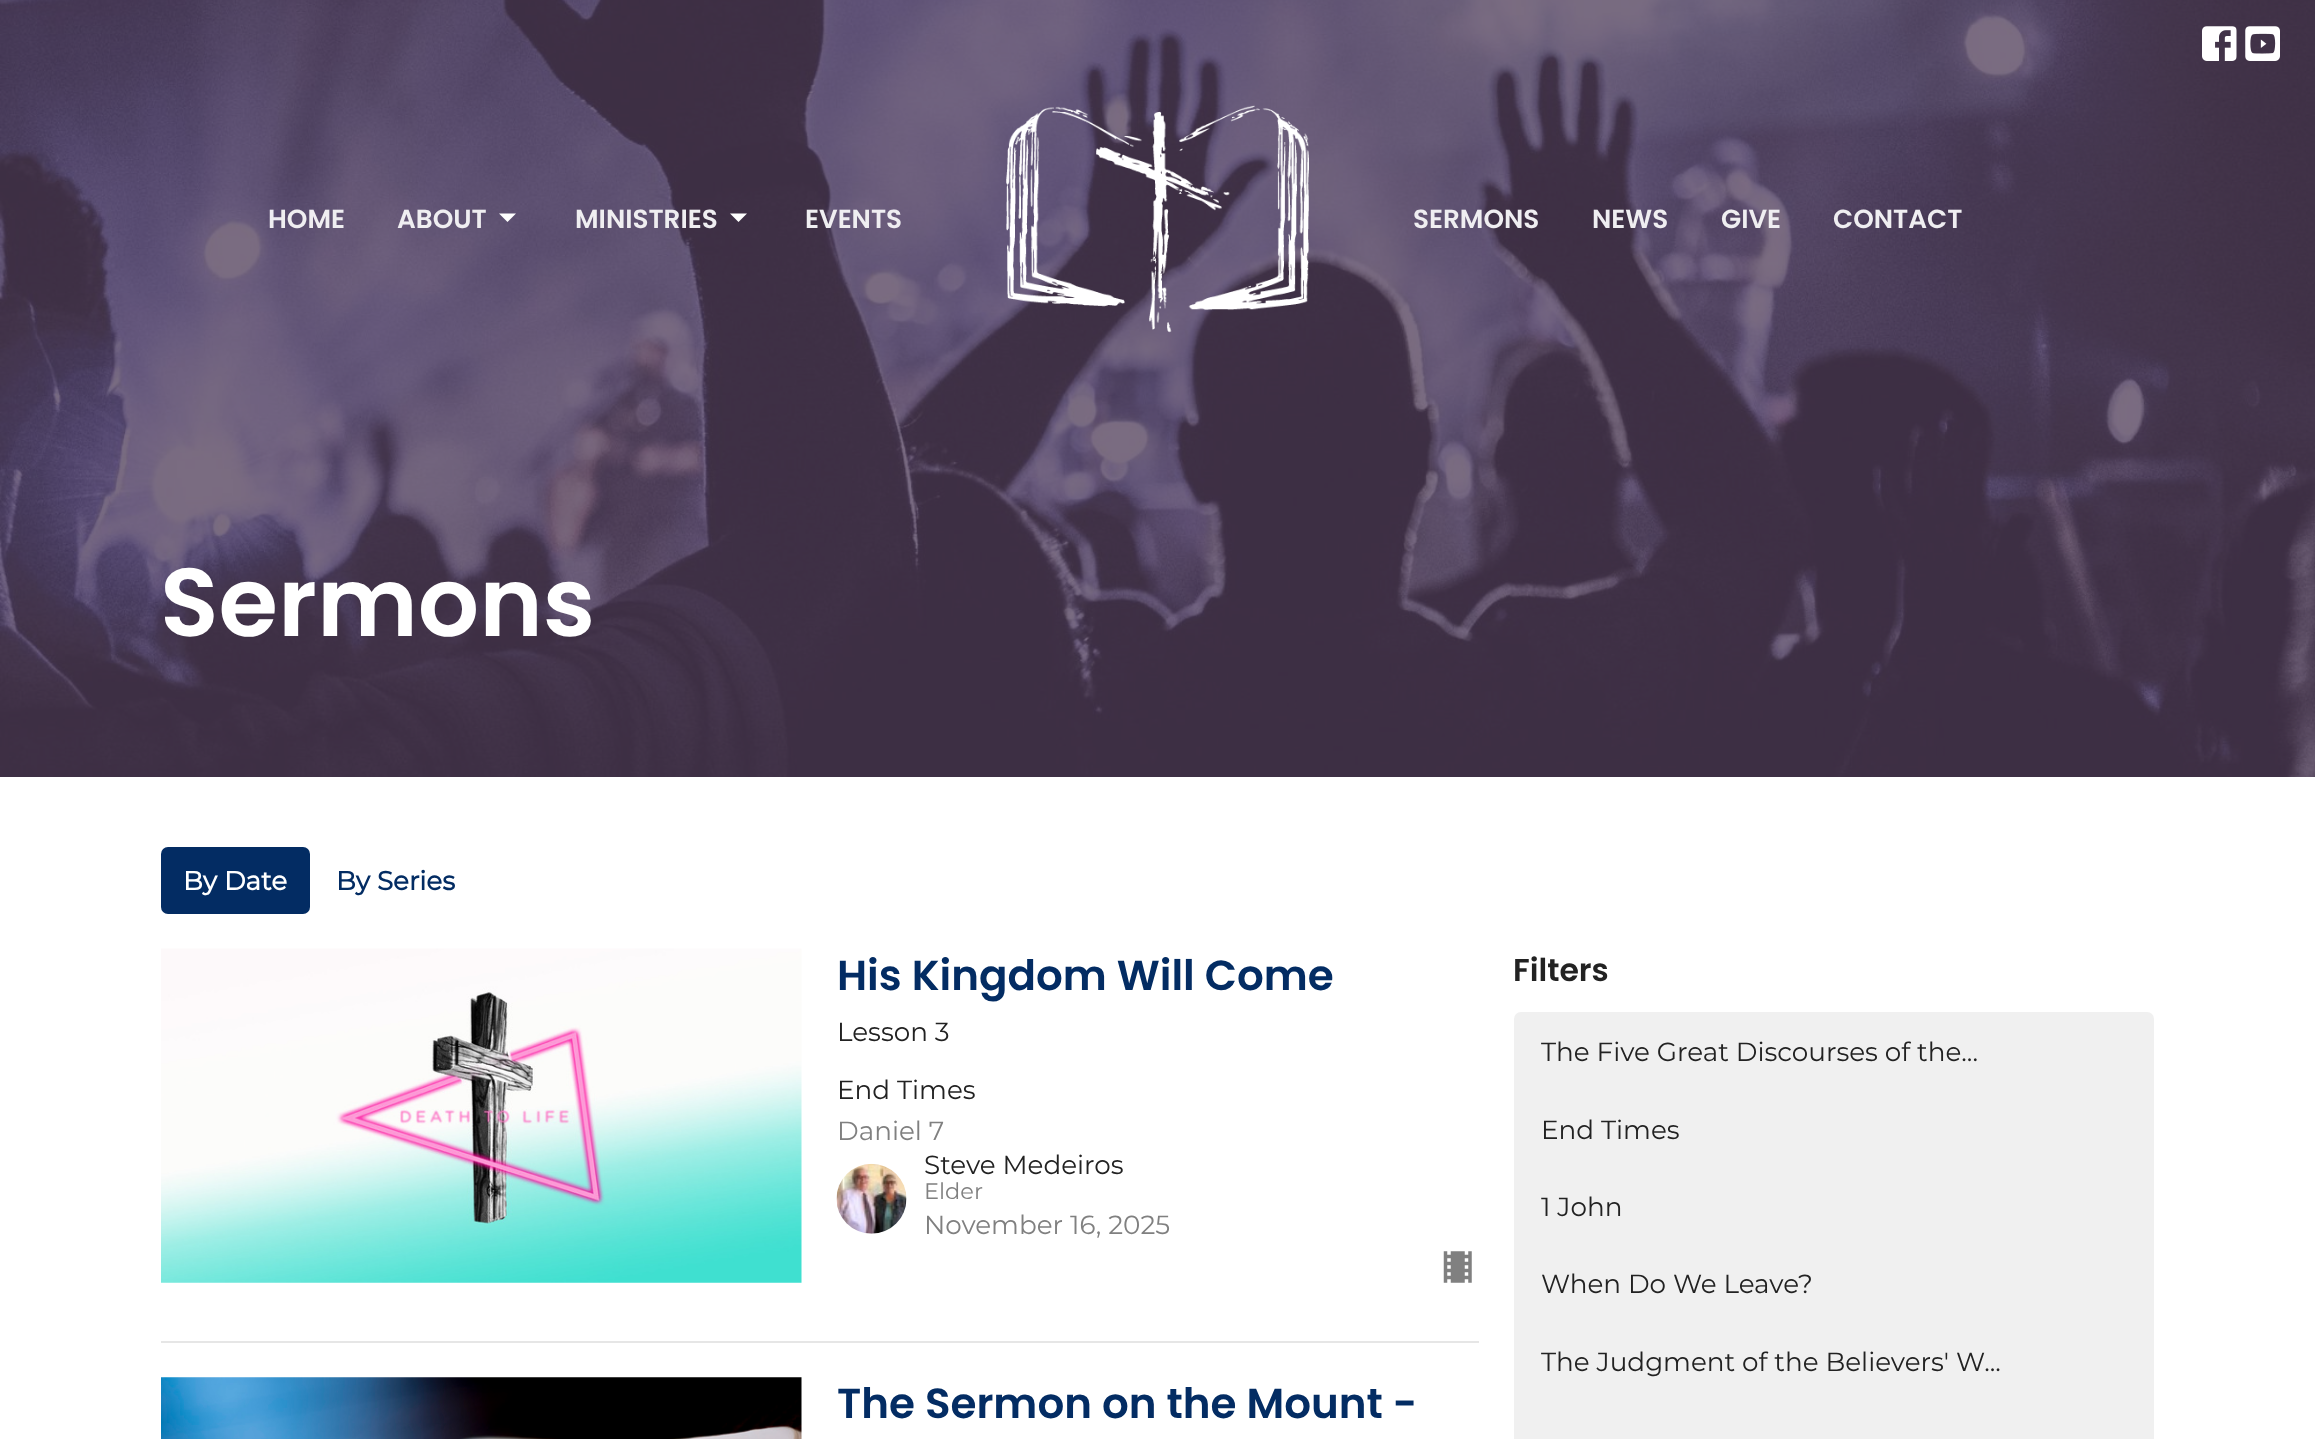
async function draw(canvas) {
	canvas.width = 2315;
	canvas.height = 1439;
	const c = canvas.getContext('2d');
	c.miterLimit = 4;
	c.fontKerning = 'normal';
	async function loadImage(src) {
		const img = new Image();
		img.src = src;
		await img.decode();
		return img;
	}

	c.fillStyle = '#fff';
	c.fillRect(0, 0, 2315, 1439);
	c.drawImage(await loadImage('img4.png'), 0, 0, 2315, 777);
	c.drawImage(await loadImage('img1.png'), 2202, 26, 35, 35);
	c.drawImage(await loadImage('img2.png'), 2245, 26, 35, 35);
	c.font = '600 26.25px Poppins';
	c.fillStyle = '#efeef1';
	c.fillText('HOME', 268, 228);
	c.fillText('ABOUT', 397, 228);
	c.fillStyle = '#fff';
	c.beginPath();
	c.moveTo(499, 213.5);
	c.lineTo(507.5, 222);
	c.lineTo(516, 213.5);
	c.closePath();
	c.fill();
	c.fillStyle = '#efeef1';
	c.fillText('MINISTRIES', 575, 228);
	c.fillStyle = '#fff';
	c.beginPath();
	c.moveTo(730, 213.5);
	c.lineTo(738.5, 222);
	c.lineTo(747, 213.5);
	c.closePath();
	c.fill();
	c.fillStyle = '#efeef1';
	c.fillText('EVENTS', 805, 228);
	c.drawImage(await loadImage('img3.png'), 1006, 105, 303, 228);
	for (const [text, x, y] of [
		['SERMONS', 1413, 228],
		['NEWS', 1592, 228],
		['GIVE', 1721, 228],
		['CONTACT', 1833, 228],
	]) {
		c.fillText(text, x, y);
	}
	c.font = '600 96.25px Poppins';
	c.fillStyle = '#fff';
	c.fillText('Sermons', 160, 636);
	c.fillStyle = '#032c63';
	c.beginPath();
	c.roundRect(161, 847, 149, 67, 7);
	c.fill();
	c.font = 'bold 26.25px Montserrat';
	c.fillStyle = '#fff';
	c.fillText('By Date', 183, 890);
	c.fillStyle = '#032c63';
	c.fillText('By Series', 336, 890);
	c.fillStyle = '#e6e6e6';
	c.fillRect(161, 1341, 1318, 2);
	c.drawImage(await loadImage('img5.png'), 161, 948, 641, 335);
	c.font = '600 42px Poppins';
	c.fillStyle = '#032c63';
	c.fillText('His Kingdom Will Come', 837, 990);
	c.font = '26.25px Montserrat';
	c.fillStyle = '#222';
	c.fillText('Lesson 3', 837, 1041);
	c.fillText('End Times', 837, 1099);
	c.fillStyle = '#808080';
	c.fillText('Daniel 7', 837, 1140);
	c.drawImage(await loadImage('img6.png'), 836, 1163, 71, 71);
	c.fillStyle = '#222';
	c.fillText('Steve Medeiros', 924, 1174);
	c.font = '22.5px Montserrat';
	c.fillStyle = '#808080';
	c.fillText('Elder', 924, 1199);
	c.font = '26.25px Montserrat';
	c.fillText('November 16, 2025', 924, 1234);
	c.drawImage(await loadImage('img7.png'), 1443, 1251, 29, 32);
	c.drawImage(await loadImage('img8.png'), 161, 1377, 641, 62);
	c.font = '600 42px Poppins';
	c.fillStyle = '#032c63';
	c.fillText('The Sermon on the Mount -', 837, 1418);
	c.font = '600 31.5px Poppins';
	c.fillStyle = '#222';
	c.fillText('Filters', 1513, 981);
	c.fillStyle = '#f0f0f0';
	c.beginPath();
	c.roundRect(1514, 1012, 640, 80, [7, 7, 0, 0]);
	c.fill();
	c.font = '26.25px Montserrat';
	c.fillStyle = '#222';
	c.fillText('The Five Great Discourses of the...', 1541, 1061);
	c.fillStyle = '#f0f0f0';
	c.fillRect(1514, 1092, 640, 347);
	c.fillStyle = '#222';
	for (const [text, x, y] of [
		['End Times', 1541, 1139],
		['1 John', 1541, 1216],
		['When Do We Leave?', 1541, 1293],
		['The Judgment of the Believers\' W...', 1541, 1371],
	]) {
		c.fillText(text, x, y);
	}
}

draw(document.querySelector('canvas'));
